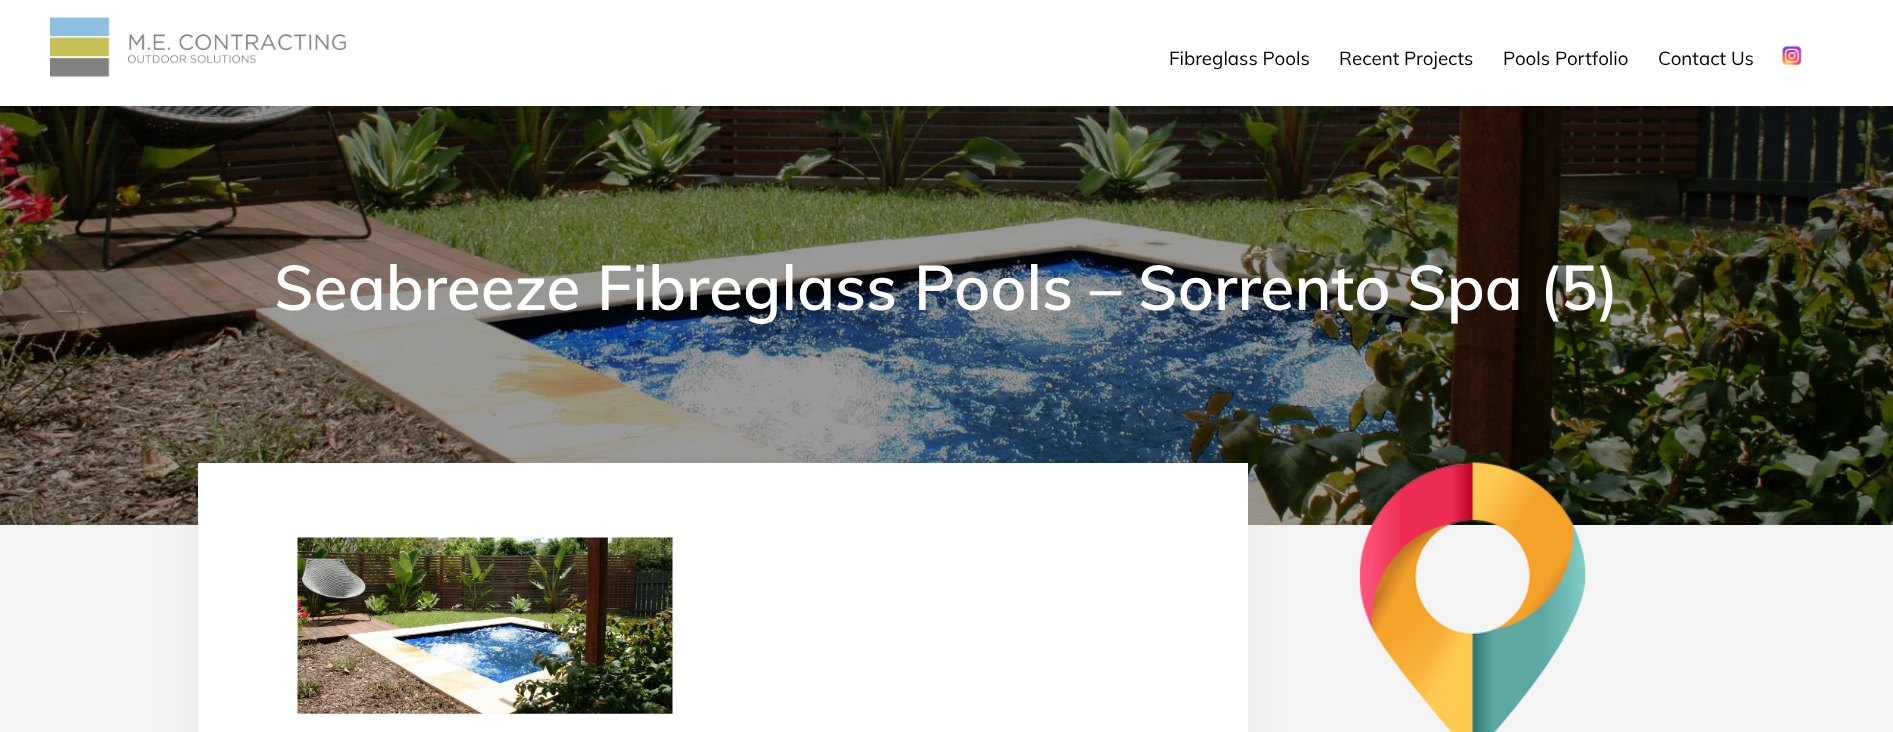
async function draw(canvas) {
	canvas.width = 1893;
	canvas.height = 732;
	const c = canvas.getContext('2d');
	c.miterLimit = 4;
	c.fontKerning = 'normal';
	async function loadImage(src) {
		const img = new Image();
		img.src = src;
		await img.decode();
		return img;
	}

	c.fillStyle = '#f4f4f4';
	c.fillRect(0, 0, 1893, 732);
	c.fillStyle = '#fff';
	c.fillRect(0, 0, 1893, 106);
	c.drawImage(await loadImage('img1.png'), 50, 17, 296, 60);
	c.font = '18.75px Muli';
	c.fillStyle = '#000';
	for (const [text, x, y] of [
		['Fibreglass Pools', 1169, 65],
		['Recent Projects', 1339, 65],
		['Pools Portfolio', 1503, 65],
		['Contact Us', 1658, 65],
	]) {
		c.fillText(text, x, y);
	}
	c.drawImage(await loadImage('img2.png'), 1782, 46, 20, 19);
	c.drawImage(await loadImage('img3.png'), 0, 106, 1893, 419);
	c.font = '600 62.5px Muli';
	c.fillStyle = '#fff';
	c.fillText('Seabreeze Fibreglass Pools – Sorrento Spa (5)', 274, 310);
	c.fillStyle = '#0000000d';
	c.filter = 'blur(25px)';
	c.beginPath();
	c.rect(198, 494, 1050, 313);
	c.fill();
	c.filter = 'none';
	c.fillStyle = '#fff';
	c.fillRect(198, 463, 1050, 269);
	c.drawImage(await loadImage('img4.png'), 297, 537, 376, 177);
	c.drawImage(await loadImage('img5.png'), 1358, 462, 229, 270);
}

draw(document.querySelector('canvas'));
